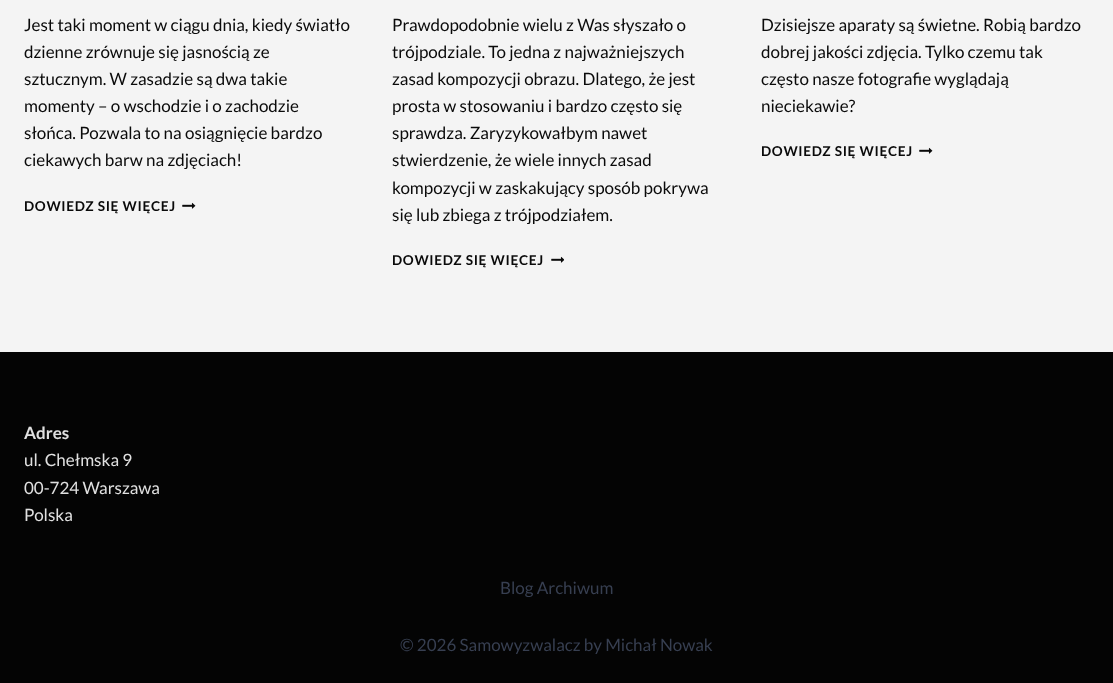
async function draw(canvas) {
	canvas.width = 1113;
	canvas.height = 683;
	const c = canvas.getContext('2d');
	c.miterLimit = 4;
	c.fontKerning = 'normal';
	async function loadImage(src) {
		const img = new Image();
		img.src = src;
		await img.decode();
		return img;
	}

	c.fillStyle = '#f4f4f4';
	c.fillRect(0, 0, 1113, 683);
	c.font = '17px Lato';
	c.fillStyle = '#0a0a0a';
	for (const [text, x, y] of [
		['Jest taki moment w ciągu dnia, kiedy światło', 24, 31],
		['dzienne zrównuje się jasnością ze', 24, 58],
		['sztucznym. W zasadzie są dwa takie', 24, 85],
		['momenty – o wschodzie i o zachodzie', 24, 112],
		['słońca. Pozwala to na osiągnięcie bardzo', 24, 139],
		['ciekawych barw na zdjęciach!', 24, 166],
	]) {
		c.fillText(text, x, y);
	}
	c.letterSpacing = '0.7px';
	c.font = 'bold 13.6px Lato';
	c.fillText('DOWIEDZ SIĘ WIĘCEJ', 24, 211);
	c.drawImage(await loadImage('img1.png'), 182, 202, 14, 7);
	c.letterSpacing = '0px';
	c.font = '17px Lato';
	for (const [text, x, y] of [
		['Prawdopodobnie wielu z Was słyszało o', 392, 31],
		['trójpodziale. To jedna z najważniejszych', 392, 58],
		['zasad kompozycji obrazu. Dlatego, że jest', 392, 85],
		['prosta w stosowaniu i bardzo często się', 392, 112],
		['sprawdza. Zaryzykowałbym nawet', 392, 139],
		['stwierdzenie, że wiele innych zasad', 392, 166],
		['kompozycji w zaskakujący sposób pokrywa', 392, 194],
		['się lub zbiega z trójpodziałem.', 392, 221],
	]) {
		c.fillText(text, x, y);
	}
	c.letterSpacing = '0.7px';
	c.font = 'bold 13.6px Lato';
	c.fillText('DOWIEDZ SIĘ WIĘCEJ', 392, 265);
	c.drawImage(await loadImage('img2.png'), 551, 256, 13, 7);
	c.letterSpacing = '0px';
	c.font = '17px Lato';
	for (const [text, x, y] of [
		['Dzisiejsze aparaty są świetne. Robią bardzo', 761, 31],
		['dobrej jakości zdjęcia. Tylko czemu tak', 761, 58],
		['często nasze fotografie wyglądają', 761, 85],
		['nieciekawie?', 761, 112],
	]) {
		c.fillText(text, x, y);
	}
	c.letterSpacing = '0.7px';
	c.font = 'bold 13.6px Lato';
	c.fillText('DOWIEDZ SIĘ WIĘCEJ', 761, 156);
	c.drawImage(await loadImage('img1.png'), 919, 147, 14, 7);
	c.fillStyle = '#040404';
	c.fillRect(0, 352, 1113, 331);
	c.letterSpacing = '0px';
	c.font = 'bold 17px Lato';
	c.fillStyle = '#e0e0e0';
	c.fillText('Adres', 24, 439);
	c.font = '17px Lato';
	for (const [text, x, y] of [
		['ul. Chełmska 9', 24, 466],
		['00-724 Warszawa', 24, 494],
		['Polska', 24, 521],
	]) {
		c.fillText(text, x, y);
	}
	c.fillStyle = '#373f51';
	c.fillText('Blog Archiwum', 500, 594);
	c.fillText('© 2026 Samowyzwalacz by Michał Nowak', 400, 651);
}

draw(document.querySelector('canvas'));
